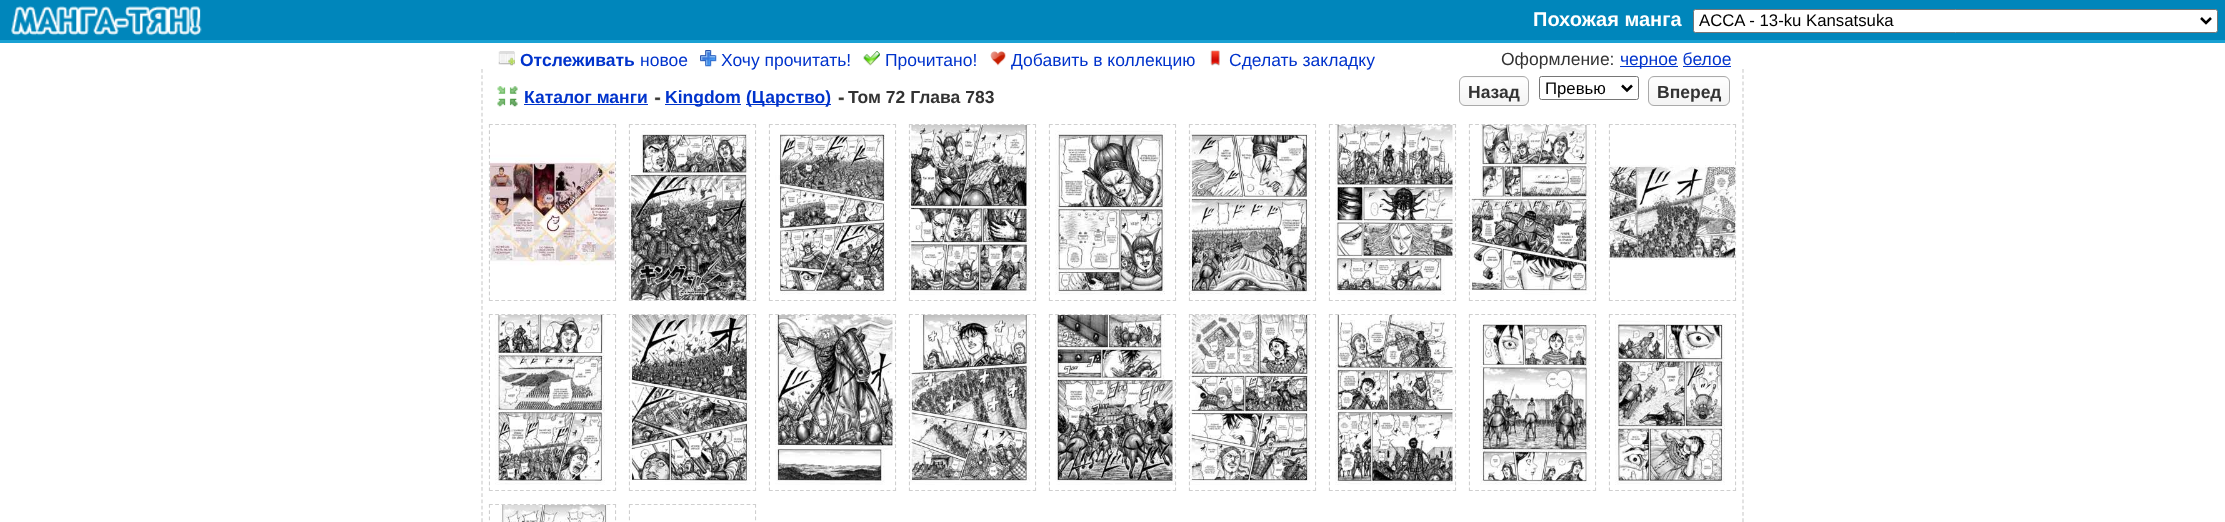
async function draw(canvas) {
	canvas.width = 2225;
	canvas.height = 522;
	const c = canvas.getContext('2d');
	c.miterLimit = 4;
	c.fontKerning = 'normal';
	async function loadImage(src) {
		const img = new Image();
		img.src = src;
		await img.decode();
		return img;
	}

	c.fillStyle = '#fff';
	c.fillRect(0, 0, 2225, 522);
	c.fillStyle = '#0086bb';
	c.fillRect(0, 0, 2225, 40);
	c.fillStyle = '#19a1d3';
	c.fillRect(0, 40, 2225, 3);
	c.drawImage(await loadImage('img1.png'), 11, 6, 191, 30);
	c.font = 'bold 20px Liberation Sans';
	c.fillStyle = '#fff';
	c.fillText('Похожая манга', 1533, 26);
	c.beginPath();
	c.roundRect(1693.5, 9.5, 524, 23, 2);
	c.fill();
	c.strokeStyle = '#767676';
	c.stroke();
	c.beginPath();
	c.moveTo(2201, 18);
	c.lineTo(2206, 23);
	c.lineTo(2211, 18);
	c.strokeStyle = '#000';
	c.lineWidth = 2.5;
	c.stroke();
	c.font = '16.75px Liberation Sans';
	c.fillStyle = '#000';
	c.fillText('ACCA - 13-ku Kansatsuka', 1699, 26);
	c.drawImage(await loadImage('img2.png'), 498, 51, 17, 15);
	c.font = 'bold 17.5px Liberation Sans';
	c.fillStyle = '#03c';
	c.fillText('Отслеживать', 520, 66);
	c.font = '17.5px Liberation Sans';
	c.fillText('новое', 640, 66);
	c.drawImage(await loadImage('img3.png'), 700, 50, 17, 17);
	c.fillText('Хочу прочитать!', 721, 66);
	c.drawImage(await loadImage('img4.png'), 863, 51, 17, 15);
	c.fillText('Прочитано!', 885, 66);
	c.drawImage(await loadImage('img5.png'), 990, 51, 16, 15);
	c.fillText('Добавить в коллекцию', 1011, 66);
	c.drawImage(await loadImage('img6.png'), 1210, 50, 10, 16);
	c.fillText('Сделать закладку', 1229, 66);
	c.fillStyle = '#333';
	c.fillText('Оформление:', 1501, 65);
	c.fillStyle = '#03c';
	c.fillRect(1620, 66, 58, 1);
	c.fillText('черное белое', 1620, 65);
	c.fillRect(1683, 66, 48, 1);
	c.beginPath();
	c.moveTo(1743, 69);
	c.lineTo(1743, 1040);
	c.strokeStyle = '#cfcfcf';
	c.lineWidth = 1.2;
	c.setLineDash([3.75, 2.49]);
	c.stroke();
	c.beginPath();
	c.moveTo(482, 69);
	c.lineTo(482, 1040);
	c.stroke();
	c.drawImage(await loadImage('img7.png'), 497, 86, 21, 21);
	c.font = 'bold 17.5px Liberation Sans';
	c.fillText('Каталог манги', 524, 103);
	c.fillRect(524, 104, 124, 1);
	c.drawImage(await loadImage('img8.png'), 654, 97, 7, 4);
	c.fillRect(665, 104, 76, 1);
	c.fillText('Kingdom', 665, 103);
	c.fillRect(746, 104, 85, 1);
	c.fillText('(Царство)', 746, 103);
	c.drawImage(await loadImage('img9.png'), 838, 97, 6, 4);
	c.fillStyle = '#333';
	c.fillText('Том 72 Глава 783', 848, 103);
	c.drawImage(await loadImage('img10.png'), 1459, 77, 70, 29);
	c.beginPath();
	c.roundRect(1459.5, 76.5, 69, 29, 5.5);
	c.strokeStyle = '#aaa';
	c.lineWidth = 1;
	c.setLineDash([]);
	c.stroke();
	c.fillText('Назад', 1468, 98);
	c.beginPath();
	c.roundRect(1539.5, 76.5, 99, 23, 2);
	c.strokeStyle = '#767676';
	c.stroke();
	c.beginPath();
	c.moveTo(1622, 85.5);
	c.lineTo(1627, 90.5);
	c.lineTo(1632, 85.5);
	c.strokeStyle = '#000';
	c.lineWidth = 2.5;
	c.stroke();
	c.font = '16.75px Liberation Sans';
	c.fillStyle = '#000';
	c.fillText('Превью', 1545, 94);
	c.drawImage(await loadImage('img11.png'), 1648, 77, 82, 29);
	c.beginPath();
	c.roundRect(1648.5, 76.5, 81, 29, 5.5);
	c.strokeStyle = '#aaa';
	c.lineWidth = 1;
	c.stroke();
	c.font = 'bold 17.5px Liberation Sans';
	c.fillStyle = '#333';
	c.fillText('Вперед', 1657, 98);
	c.beginPath();
	c.moveTo(489, 124.5);
	c.lineTo(616, 124.5);
	c.strokeStyle = '#cfcfcf';
	c.lineWidth = 1.2;
	c.setLineDash([3.75, 2.44]);
	c.stroke();
	c.beginPath();
	c.moveTo(629, 124.5);
	c.lineTo(756, 124.5);
	c.stroke();
	c.beginPath();
	c.moveTo(769, 124.5);
	c.lineTo(896, 124.5);
	c.stroke();
	c.beginPath();
	c.moveTo(909, 124.5);
	c.lineTo(1036, 124.5);
	c.stroke();
	c.beginPath();
	c.moveTo(1049, 124.5);
	c.lineTo(1176, 124.5);
	c.stroke();
	c.beginPath();
	c.moveTo(1189, 124.5);
	c.lineTo(1316, 124.5);
	c.stroke();
	c.beginPath();
	c.moveTo(1329, 124.5);
	c.lineTo(1456, 124.5);
	c.stroke();
	c.beginPath();
	c.moveTo(1469, 124.5);
	c.lineTo(1596, 124.5);
	c.stroke();
	c.beginPath();
	c.moveTo(1609, 124.5);
	c.lineTo(1736, 124.5);
	c.stroke();
	c.beginPath();
	c.moveTo(615.5, 124);
	c.lineTo(615.5, 301);
	c.setLineDash([3.75, 2.45]);
	c.stroke();
	c.beginPath();
	c.moveTo(489, 300.5);
	c.lineTo(616, 300.5);
	c.setLineDash([3.75, 2.44]);
	c.stroke();
	c.beginPath();
	c.moveTo(489.5, 124);
	c.lineTo(489.5, 301);
	c.setLineDash([3.75, 2.45]);
	c.stroke();
	c.drawImage(await loadImage('img12.png'), 490, 125, 125, 175);
	c.beginPath();
	c.moveTo(755.5, 124);
	c.lineTo(755.5, 301);
	c.stroke();
	c.beginPath();
	c.moveTo(629, 300.5);
	c.lineTo(756, 300.5);
	c.setLineDash([3.75, 2.44]);
	c.stroke();
	c.beginPath();
	c.moveTo(629.5, 124);
	c.lineTo(629.5, 301);
	c.setLineDash([3.75, 2.45]);
	c.stroke();
	c.drawImage(await loadImage('img13.png'), 630, 125, 125, 175);
	c.beginPath();
	c.moveTo(895.5, 124);
	c.lineTo(895.5, 301);
	c.stroke();
	c.beginPath();
	c.moveTo(769, 300.5);
	c.lineTo(896, 300.5);
	c.setLineDash([3.75, 2.44]);
	c.stroke();
	c.beginPath();
	c.moveTo(769.5, 124);
	c.lineTo(769.5, 301);
	c.setLineDash([3.75, 2.45]);
	c.stroke();
	c.drawImage(await loadImage('img14.png'), 770, 125, 125, 175);
	c.beginPath();
	c.moveTo(1035.5, 124);
	c.lineTo(1035.5, 301);
	c.stroke();
	c.beginPath();
	c.moveTo(909, 300.5);
	c.lineTo(1036, 300.5);
	c.setLineDash([3.75, 2.44]);
	c.stroke();
	c.beginPath();
	c.moveTo(909.5, 124);
	c.lineTo(909.5, 301);
	c.setLineDash([3.75, 2.45]);
	c.stroke();
	c.drawImage(await loadImage('img15.png'), 910, 125, 125, 175);
	c.beginPath();
	c.moveTo(1175.5, 124);
	c.lineTo(1175.5, 301);
	c.stroke();
	c.beginPath();
	c.moveTo(1049, 300.5);
	c.lineTo(1176, 300.5);
	c.setLineDash([3.75, 2.44]);
	c.stroke();
	c.beginPath();
	c.moveTo(1049.5, 124);
	c.lineTo(1049.5, 301);
	c.setLineDash([3.75, 2.45]);
	c.stroke();
	c.drawImage(await loadImage('img16.png'), 1050, 125, 125, 175);
	c.beginPath();
	c.moveTo(1315.5, 124);
	c.lineTo(1315.5, 301);
	c.stroke();
	c.beginPath();
	c.moveTo(1189, 300.5);
	c.lineTo(1316, 300.5);
	c.setLineDash([3.75, 2.44]);
	c.stroke();
	c.beginPath();
	c.moveTo(1189.5, 124);
	c.lineTo(1189.5, 301);
	c.setLineDash([3.75, 2.45]);
	c.stroke();
	c.drawImage(await loadImage('img17.png'), 1190, 125, 125, 175);
	c.beginPath();
	c.moveTo(1455.5, 124);
	c.lineTo(1455.5, 301);
	c.stroke();
	c.beginPath();
	c.moveTo(1329, 300.5);
	c.lineTo(1456, 300.5);
	c.setLineDash([3.75, 2.44]);
	c.stroke();
	c.beginPath();
	c.moveTo(1329.5, 124);
	c.lineTo(1329.5, 301);
	c.setLineDash([3.75, 2.45]);
	c.stroke();
	c.drawImage(await loadImage('img18.png'), 1330, 125, 125, 175);
	c.beginPath();
	c.moveTo(1595.5, 124);
	c.lineTo(1595.5, 301);
	c.stroke();
	c.beginPath();
	c.moveTo(1469, 300.5);
	c.lineTo(1596, 300.5);
	c.setLineDash([3.75, 2.44]);
	c.stroke();
	c.beginPath();
	c.moveTo(1469.5, 124);
	c.lineTo(1469.5, 301);
	c.setLineDash([3.75, 2.45]);
	c.stroke();
	c.drawImage(await loadImage('img19.png'), 1470, 125, 125, 175);
	c.beginPath();
	c.moveTo(1735.5, 124);
	c.lineTo(1735.5, 301);
	c.stroke();
	c.beginPath();
	c.moveTo(1609, 300.5);
	c.lineTo(1736, 300.5);
	c.setLineDash([3.75, 2.44]);
	c.stroke();
	c.beginPath();
	c.moveTo(1609.5, 124);
	c.lineTo(1609.5, 301);
	c.setLineDash([3.75, 2.45]);
	c.stroke();
	c.drawImage(await loadImage('img20.png'), 1610, 125, 125, 175);
	c.beginPath();
	c.moveTo(489, 314.5);
	c.lineTo(616, 314.5);
	c.setLineDash([3.75, 2.44]);
	c.stroke();
	c.beginPath();
	c.moveTo(629, 314.5);
	c.lineTo(756, 314.5);
	c.stroke();
	c.beginPath();
	c.moveTo(769, 314.5);
	c.lineTo(896, 314.5);
	c.stroke();
	c.beginPath();
	c.moveTo(909, 314.5);
	c.lineTo(1036, 314.5);
	c.stroke();
	c.beginPath();
	c.moveTo(1049, 314.5);
	c.lineTo(1176, 314.5);
	c.stroke();
	c.beginPath();
	c.moveTo(1189, 314.5);
	c.lineTo(1316, 314.5);
	c.stroke();
	c.beginPath();
	c.moveTo(1329, 314.5);
	c.lineTo(1456, 314.5);
	c.stroke();
	c.beginPath();
	c.moveTo(1469, 314.5);
	c.lineTo(1596, 314.5);
	c.stroke();
	c.beginPath();
	c.moveTo(1609, 314.5);
	c.lineTo(1736, 314.5);
	c.stroke();
	c.beginPath();
	c.moveTo(615.5, 314);
	c.lineTo(615.5, 491);
	c.setLineDash([3.75, 2.45]);
	c.stroke();
	c.beginPath();
	c.moveTo(489, 490.5);
	c.lineTo(616, 490.5);
	c.setLineDash([3.75, 2.44]);
	c.stroke();
	c.beginPath();
	c.moveTo(489.5, 314);
	c.lineTo(489.5, 491);
	c.setLineDash([3.75, 2.45]);
	c.stroke();
	c.drawImage(await loadImage('img21.png'), 490, 315, 125, 175);
	c.beginPath();
	c.moveTo(755.5, 314);
	c.lineTo(755.5, 491);
	c.stroke();
	c.beginPath();
	c.moveTo(629, 490.5);
	c.lineTo(756, 490.5);
	c.setLineDash([3.75, 2.44]);
	c.stroke();
	c.beginPath();
	c.moveTo(629.5, 314);
	c.lineTo(629.5, 491);
	c.setLineDash([3.75, 2.45]);
	c.stroke();
	c.drawImage(await loadImage('img22.png'), 630, 315, 125, 175);
	c.beginPath();
	c.moveTo(895.5, 314);
	c.lineTo(895.5, 491);
	c.stroke();
	c.beginPath();
	c.moveTo(769, 490.5);
	c.lineTo(896, 490.5);
	c.setLineDash([3.75, 2.44]);
	c.stroke();
	c.beginPath();
	c.moveTo(769.5, 314);
	c.lineTo(769.5, 491);
	c.setLineDash([3.75, 2.45]);
	c.stroke();
	c.drawImage(await loadImage('img23.png'), 770, 315, 125, 175);
	c.beginPath();
	c.moveTo(1035.5, 314);
	c.lineTo(1035.5, 491);
	c.stroke();
	c.beginPath();
	c.moveTo(909, 490.5);
	c.lineTo(1036, 490.5);
	c.setLineDash([3.75, 2.44]);
	c.stroke();
	c.beginPath();
	c.moveTo(909.5, 314);
	c.lineTo(909.5, 491);
	c.setLineDash([3.75, 2.45]);
	c.stroke();
	c.drawImage(await loadImage('img24.png'), 910, 315, 125, 175);
	c.beginPath();
	c.moveTo(1175.5, 314);
	c.lineTo(1175.5, 491);
	c.stroke();
	c.beginPath();
	c.moveTo(1049, 490.5);
	c.lineTo(1176, 490.5);
	c.setLineDash([3.75, 2.44]);
	c.stroke();
	c.beginPath();
	c.moveTo(1049.5, 314);
	c.lineTo(1049.5, 491);
	c.setLineDash([3.75, 2.45]);
	c.stroke();
	c.drawImage(await loadImage('img25.png'), 1050, 315, 125, 175);
	c.beginPath();
	c.moveTo(1315.5, 314);
	c.lineTo(1315.5, 491);
	c.stroke();
	c.beginPath();
	c.moveTo(1189, 490.5);
	c.lineTo(1316, 490.5);
	c.setLineDash([3.75, 2.44]);
	c.stroke();
	c.beginPath();
	c.moveTo(1189.5, 314);
	c.lineTo(1189.5, 491);
	c.setLineDash([3.75, 2.45]);
	c.stroke();
	c.drawImage(await loadImage('img26.png'), 1190, 315, 125, 175);
	c.beginPath();
	c.moveTo(1455.5, 314);
	c.lineTo(1455.5, 491);
	c.stroke();
	c.beginPath();
	c.moveTo(1329, 490.5);
	c.lineTo(1456, 490.5);
	c.setLineDash([3.75, 2.44]);
	c.stroke();
	c.beginPath();
	c.moveTo(1329.5, 314);
	c.lineTo(1329.5, 491);
	c.setLineDash([3.75, 2.45]);
	c.stroke();
	c.drawImage(await loadImage('img27.png'), 1330, 315, 125, 175);
	c.beginPath();
	c.moveTo(1595.5, 314);
	c.lineTo(1595.5, 491);
	c.stroke();
	c.beginPath();
	c.moveTo(1469, 490.5);
	c.lineTo(1596, 490.5);
	c.setLineDash([3.75, 2.44]);
	c.stroke();
	c.beginPath();
	c.moveTo(1469.5, 314);
	c.lineTo(1469.5, 491);
	c.setLineDash([3.75, 2.45]);
	c.stroke();
	c.drawImage(await loadImage('img28.png'), 1470, 315, 125, 175);
	c.beginPath();
	c.moveTo(1735.5, 314);
	c.lineTo(1735.5, 491);
	c.stroke();
	c.beginPath();
	c.moveTo(1609, 490.5);
	c.lineTo(1736, 490.5);
	c.setLineDash([3.75, 2.44]);
	c.stroke();
	c.beginPath();
	c.moveTo(1609.5, 314);
	c.lineTo(1609.5, 491);
	c.setLineDash([3.75, 2.45]);
	c.stroke();
	c.drawImage(await loadImage('img29.png'), 1610, 315, 125, 175);
	c.beginPath();
	c.moveTo(489, 504.5);
	c.lineTo(616, 504.5);
	c.setLineDash([3.75, 2.44]);
	c.stroke();
	c.beginPath();
	c.moveTo(629, 504.5);
	c.lineTo(756, 504.5);
	c.stroke();
	c.beginPath();
	c.moveTo(489.5, 504);
	c.lineTo(489.5, 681);
	c.setLineDash([3.75, 2.45]);
	c.stroke();
	c.beginPath();
	c.moveTo(615.5, 504);
	c.lineTo(615.5, 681);
	c.stroke();
	c.drawImage(await loadImage('img30.png'), 490, 505, 125, 17);
	c.beginPath();
	c.moveTo(629.5, 504);
	c.lineTo(629.5, 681);
	c.stroke();
	c.beginPath();
	c.moveTo(755.5, 504);
	c.lineTo(755.5, 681);
	c.stroke();
	c.fillStyle = '#fff';
	c.fillRect(630, 505, 125, 15);
}

draw(document.querySelector('canvas'));
